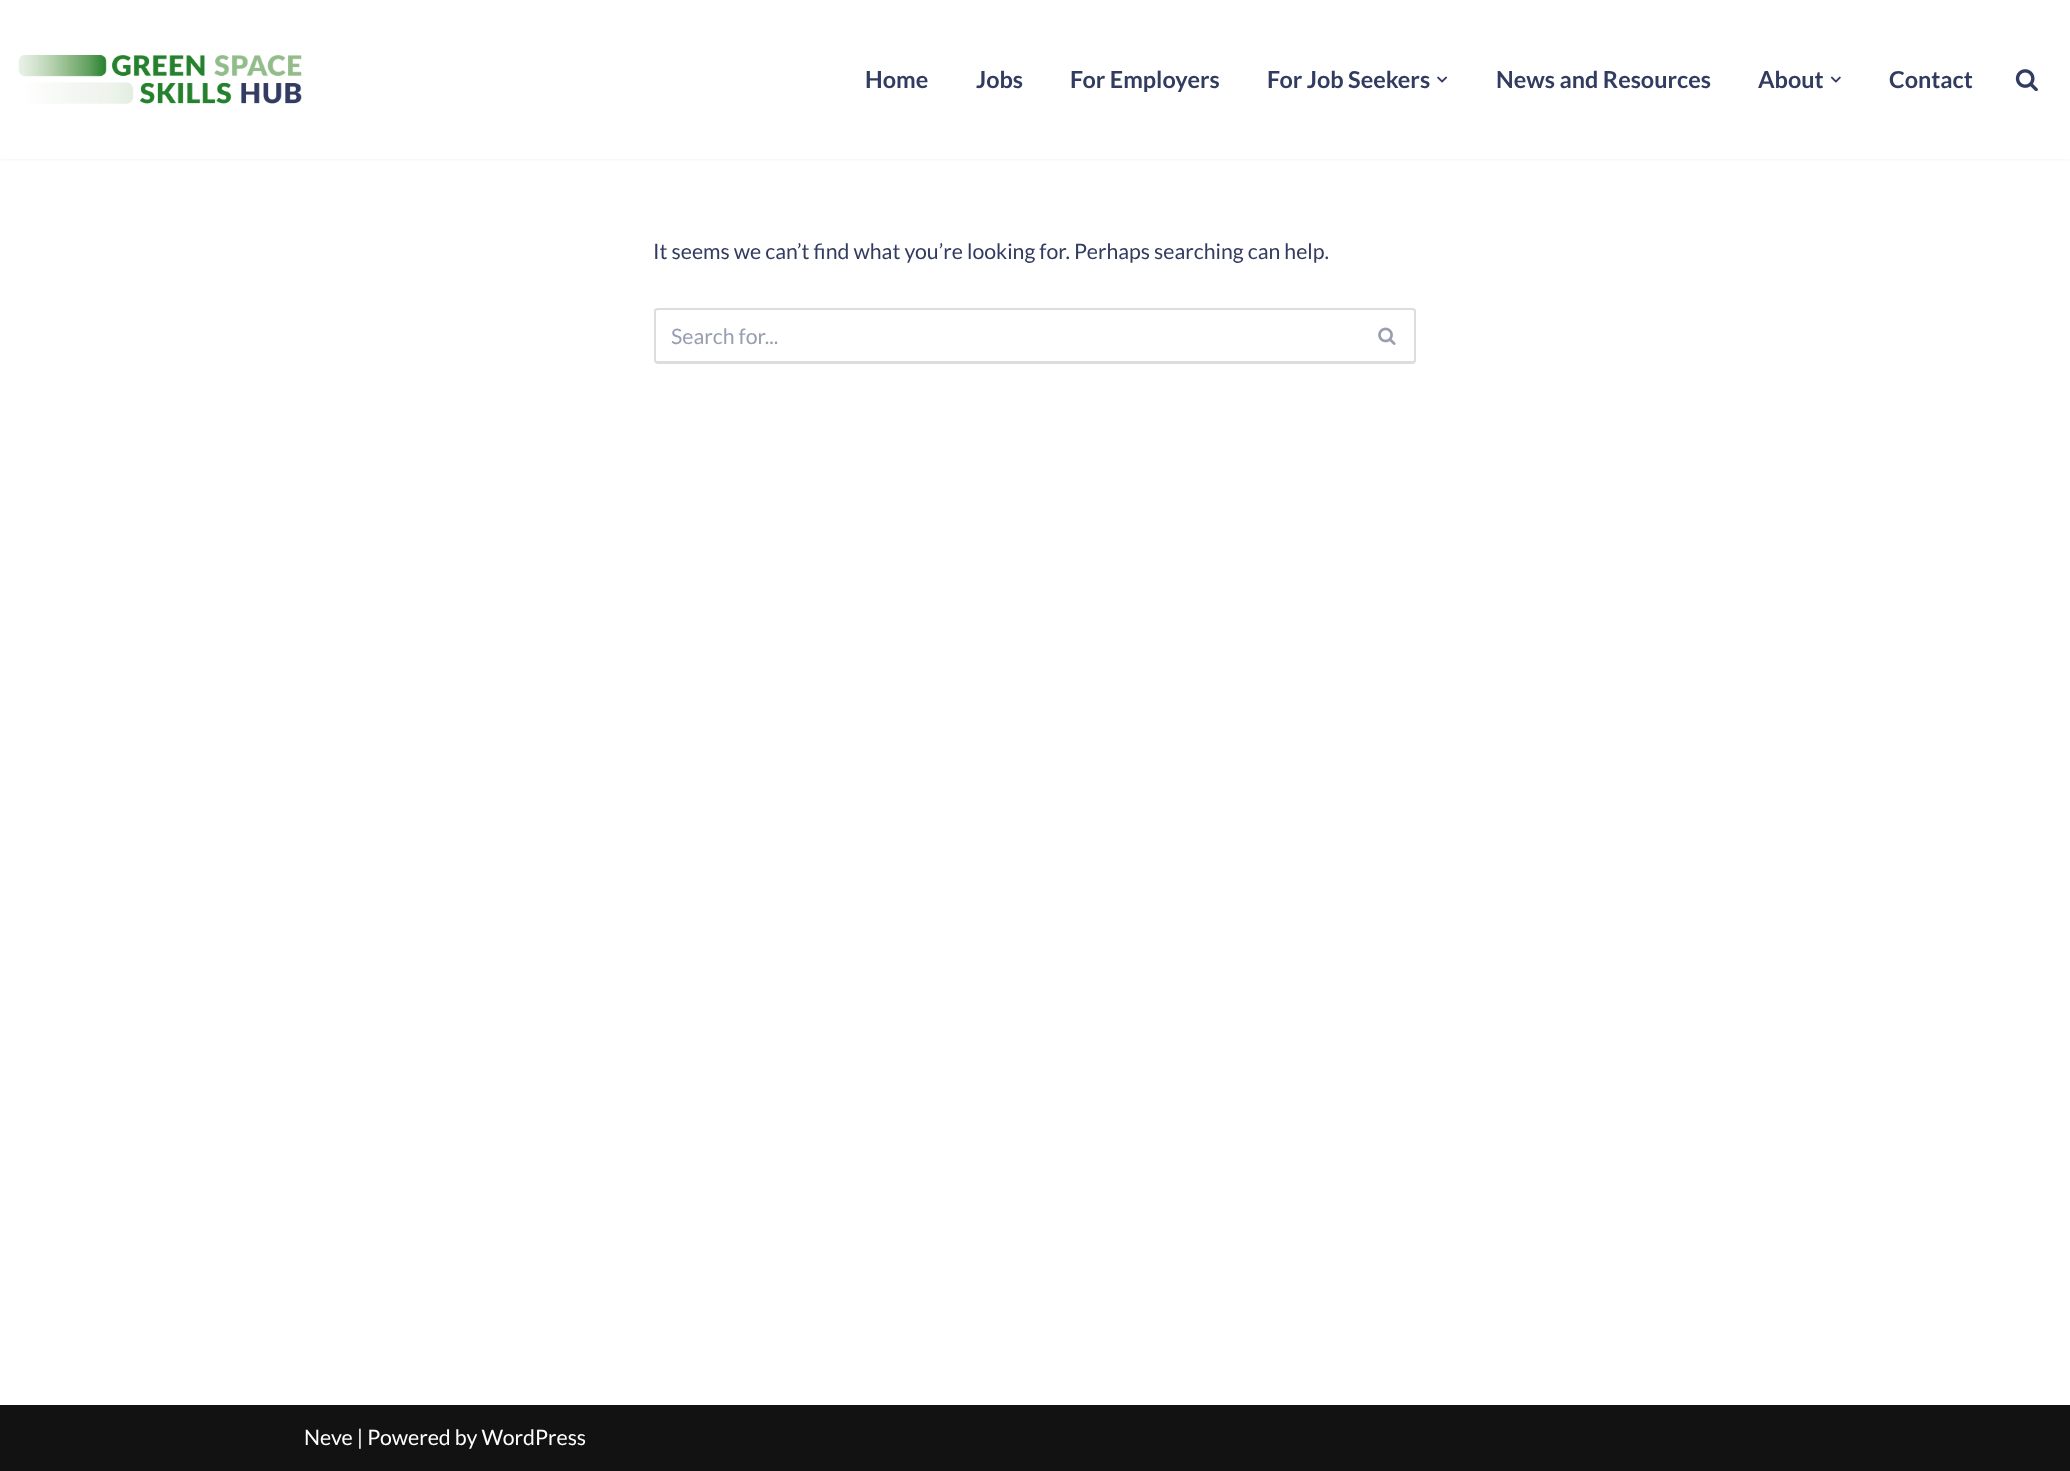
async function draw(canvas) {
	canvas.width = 2070;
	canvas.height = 1471;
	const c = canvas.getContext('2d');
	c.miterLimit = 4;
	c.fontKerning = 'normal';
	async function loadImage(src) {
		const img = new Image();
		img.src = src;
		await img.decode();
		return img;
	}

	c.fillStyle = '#fff';
	c.fillRect(0, 0, 2070, 1471);
	c.fillStyle = '#0000001a';
	c.filter = 'blur(2px)';
	c.beginPath();
	c.rect(0, -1, 2070, 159);
	c.fill();
	c.filter = 'none';
	c.fillStyle = '#fff';
	c.fillRect(0, 0, 2070, 159);
	c.drawImage(await loadImage('img1.png'), 18, 55, 284, 49);
	c.font = 'bold 23.4px Lato';
	c.fillStyle = '#323b60';
	for (const [text, x, y] of [
		['Home', 865, 88],
		['Jobs', 976, 88],
		['For Employers', 1070, 88],
		['For Job Seekers', 1267, 88],
	]) {
		c.fillText(text, x, y);
	}
	c.drawImage(await loadImage('img2.png'), 1437, 76, 10, 7);
	c.fillText('News and Resources', 1496, 88);
	c.fillText('About', 1758, 88);
	c.drawImage(await loadImage('img3.png'), 1830, 76, 11, 7);
	c.fillText('Contact', 1889, 88);
	c.drawImage(await loadImage('img4.png'), 2015, 69, 23, 22);
	c.font = '21.25px Lato';
	c.fillText('It seems we can’t find what you’re looking for. Perhaps searching can help.', 653, 259);
	c.fillStyle = '#ddd';
	c.beginPath();
	c.moveTo(658, 308);
	c.lineTo(1360, 308);
	c.lineTo(1360, 364);
	c.lineTo(658, 364);
	c.bezierCurveTo(655, 364, 654, 362, 654, 360);
	c.lineTo(654, 311);
	c.bezierCurveTo(654, 309, 655, 308, 658, 308);
	c.closePath();
	c.moveTo(658, 310);
	c.lineTo(1360, 310);
	c.lineTo(1360, 361);
	c.lineTo(658, 361);
	c.bezierCurveTo(657, 361, 656, 361, 656, 360);
	c.lineTo(656, 311);
	c.bezierCurveTo(656, 311, 657, 310, 658, 310);
	c.closePath();
	c.fill('evenodd');
	c.fillStyle = '#999db0';
	c.fillText('Search for...', 671, 344);
	c.fillStyle = '#ddd';
	c.beginPath();
	c.moveTo(1360, 308);
	c.lineTo(1412, 308);
	c.bezierCurveTo(1415, 308, 1416, 309, 1416, 311);
	c.lineTo(1416, 360);
	c.bezierCurveTo(1416, 362, 1415, 364, 1412, 364);
	c.lineTo(1360, 364);
	c.closePath();
	c.moveTo(1360, 310);
	c.lineTo(1412, 310);
	c.bezierCurveTo(1413, 310, 1414, 311, 1414, 311);
	c.lineTo(1414, 360);
	c.bezierCurveTo(1414, 361, 1413, 361, 1412, 361);
	c.lineTo(1360, 361);
	c.closePath();
	c.fill('evenodd');
	c.drawImage(await loadImage('img5.png'), 1378, 327, 18, 18);
	c.fillStyle = '#121212';
	c.fillRect(0, 1405, 2070, 66);
	c.fillStyle = '#fff';
	c.fillText('Neve | Powered by WordPress', 304, 1445);
}

draw(document.querySelector('canvas'));
